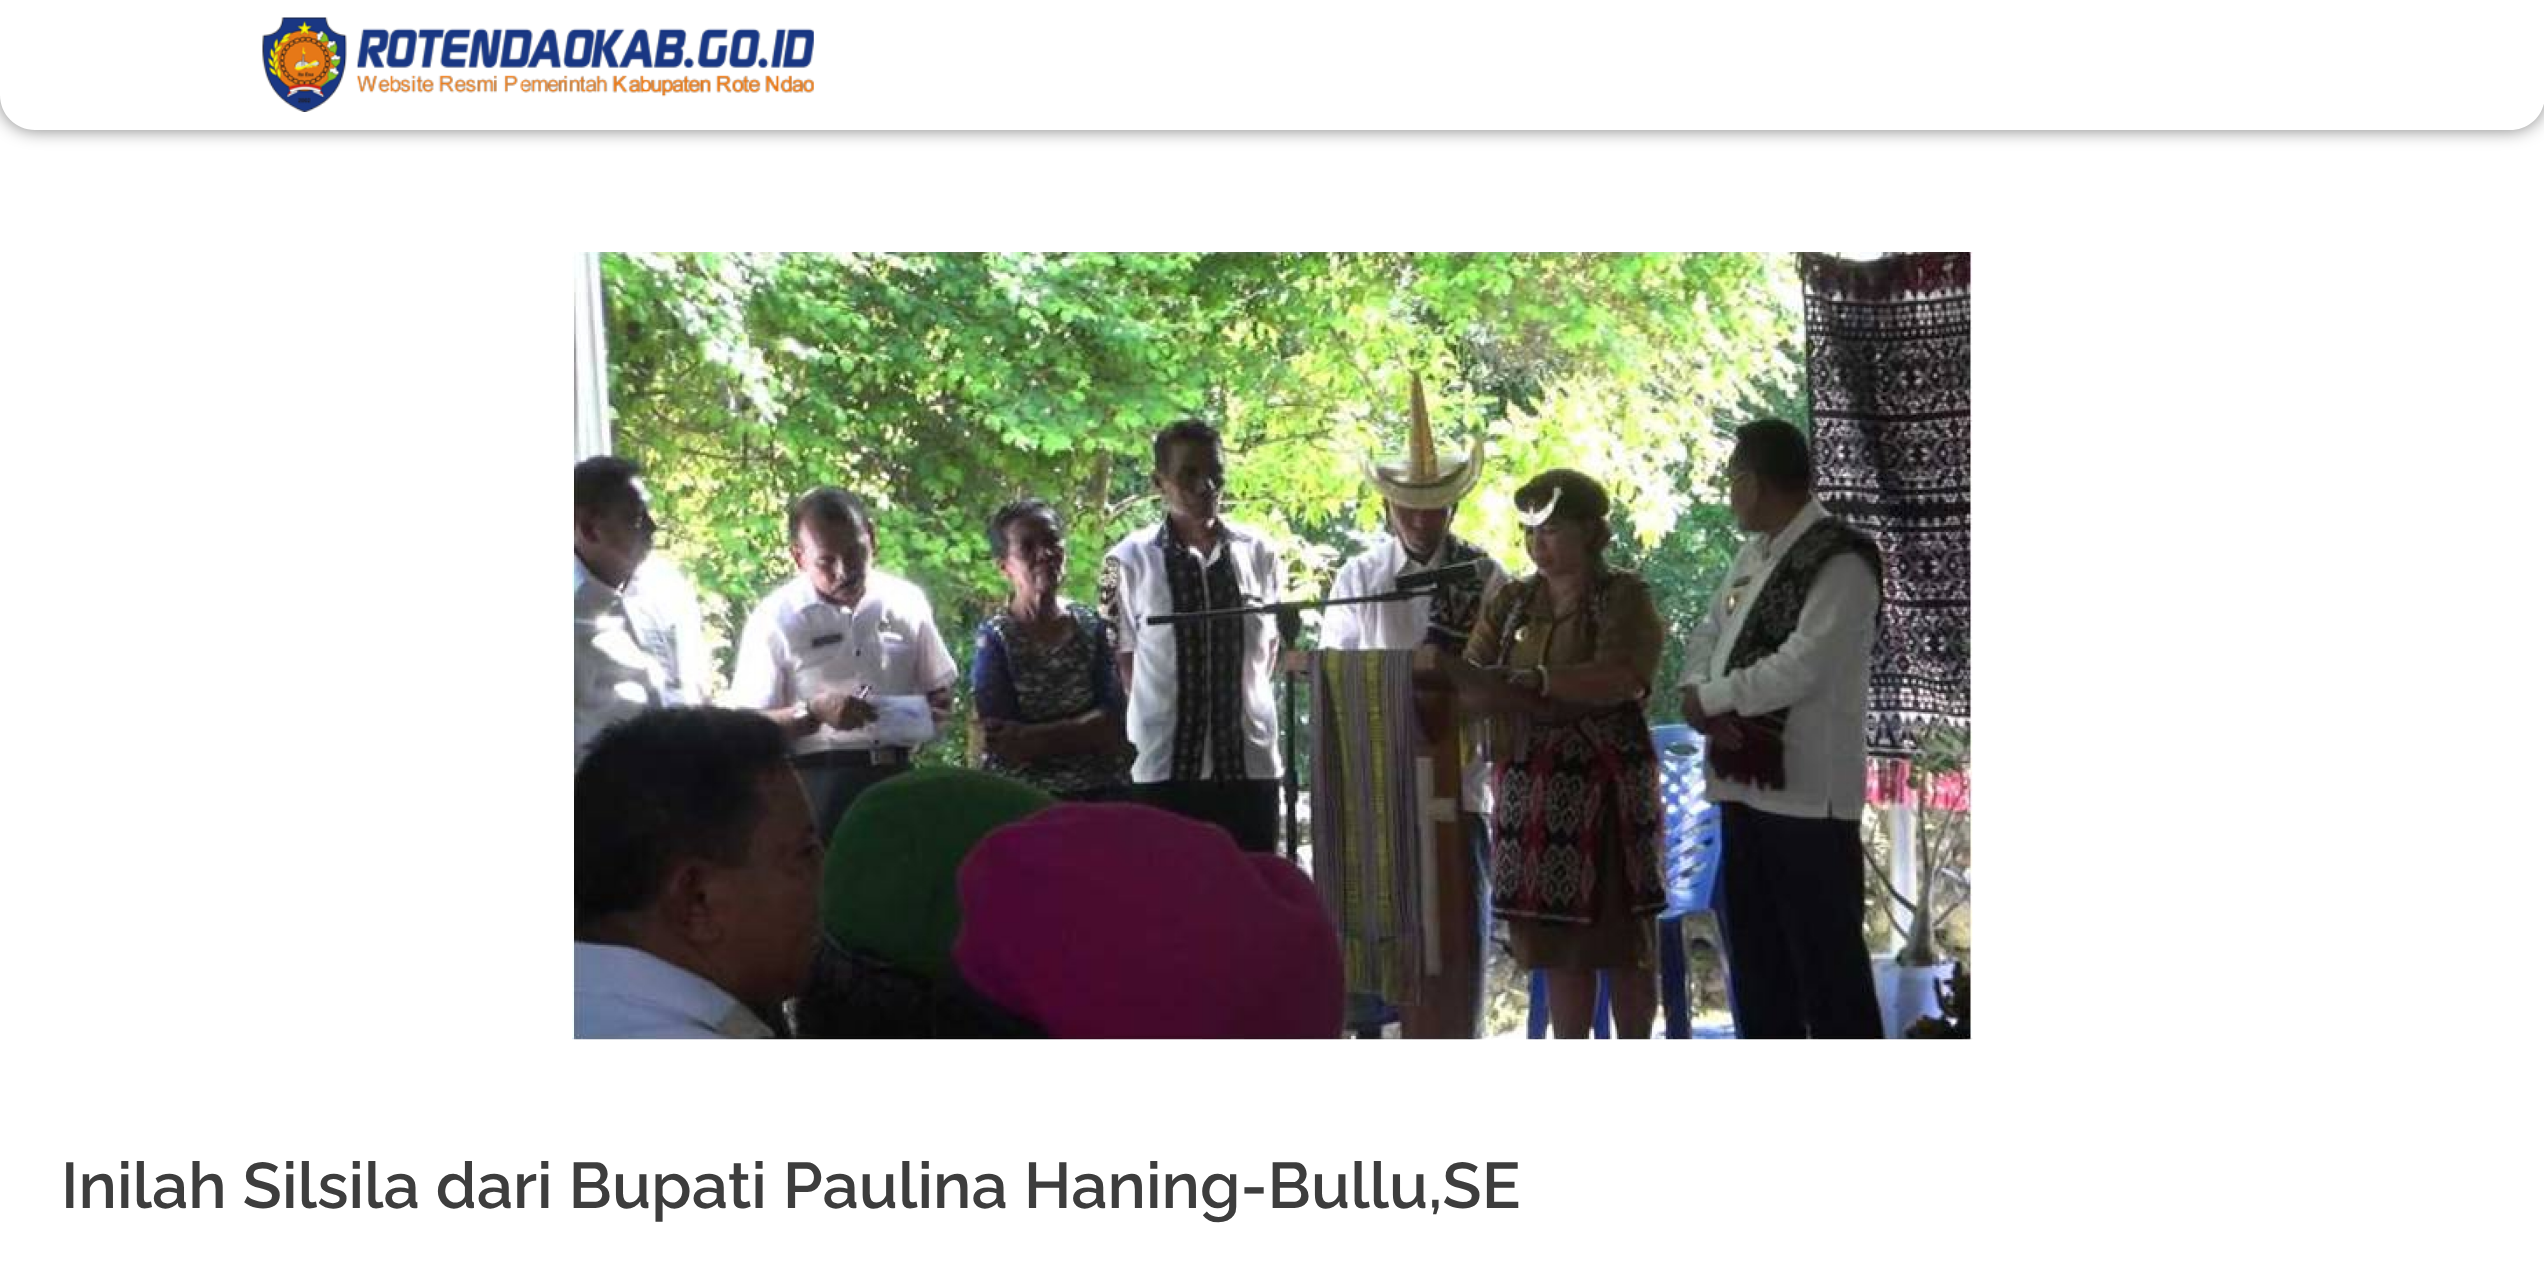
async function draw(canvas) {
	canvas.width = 2544;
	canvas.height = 1284;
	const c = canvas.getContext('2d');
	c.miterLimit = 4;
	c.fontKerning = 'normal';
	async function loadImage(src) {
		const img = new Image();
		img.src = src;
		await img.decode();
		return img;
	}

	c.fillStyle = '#fff';
	c.fillRect(0, 0, 2544, 1284);
	c.fillStyle = '#00000080';
	c.filter = 'blur(9px)';
	c.beginPath();
	c.roundRect(0, 0, 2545, 130, 35);
	c.fill();
	c.filter = 'none';
	c.fillStyle = '#fff';
	c.beginPath();
	c.moveTo(0, 0);
	c.lineTo(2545, 0);
	c.lineTo(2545, 95);
	c.bezierCurveTo(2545, 114.5, 2529.5, 130, 2510, 130);
	c.lineTo(35, 130);
	c.bezierCurveTo(15.5, 130, 0, 114.5, 0, 95);
	c.closePath();
	c.fill();
	c.drawImage(await loadImage('img1.png'), 262, 17, 552, 95);
	c.drawImage(await loadImage('img2.png'), 572, 252, 1401, 788);
	c.font = '600 64.4px Raleway';
	c.fillStyle = '#3d3d3d';
	c.fillText('Inilah Silsila dari Bupati Paulina Haning-Bullu,SE', 61, 1208);
}

draw(document.querySelector('canvas'));
